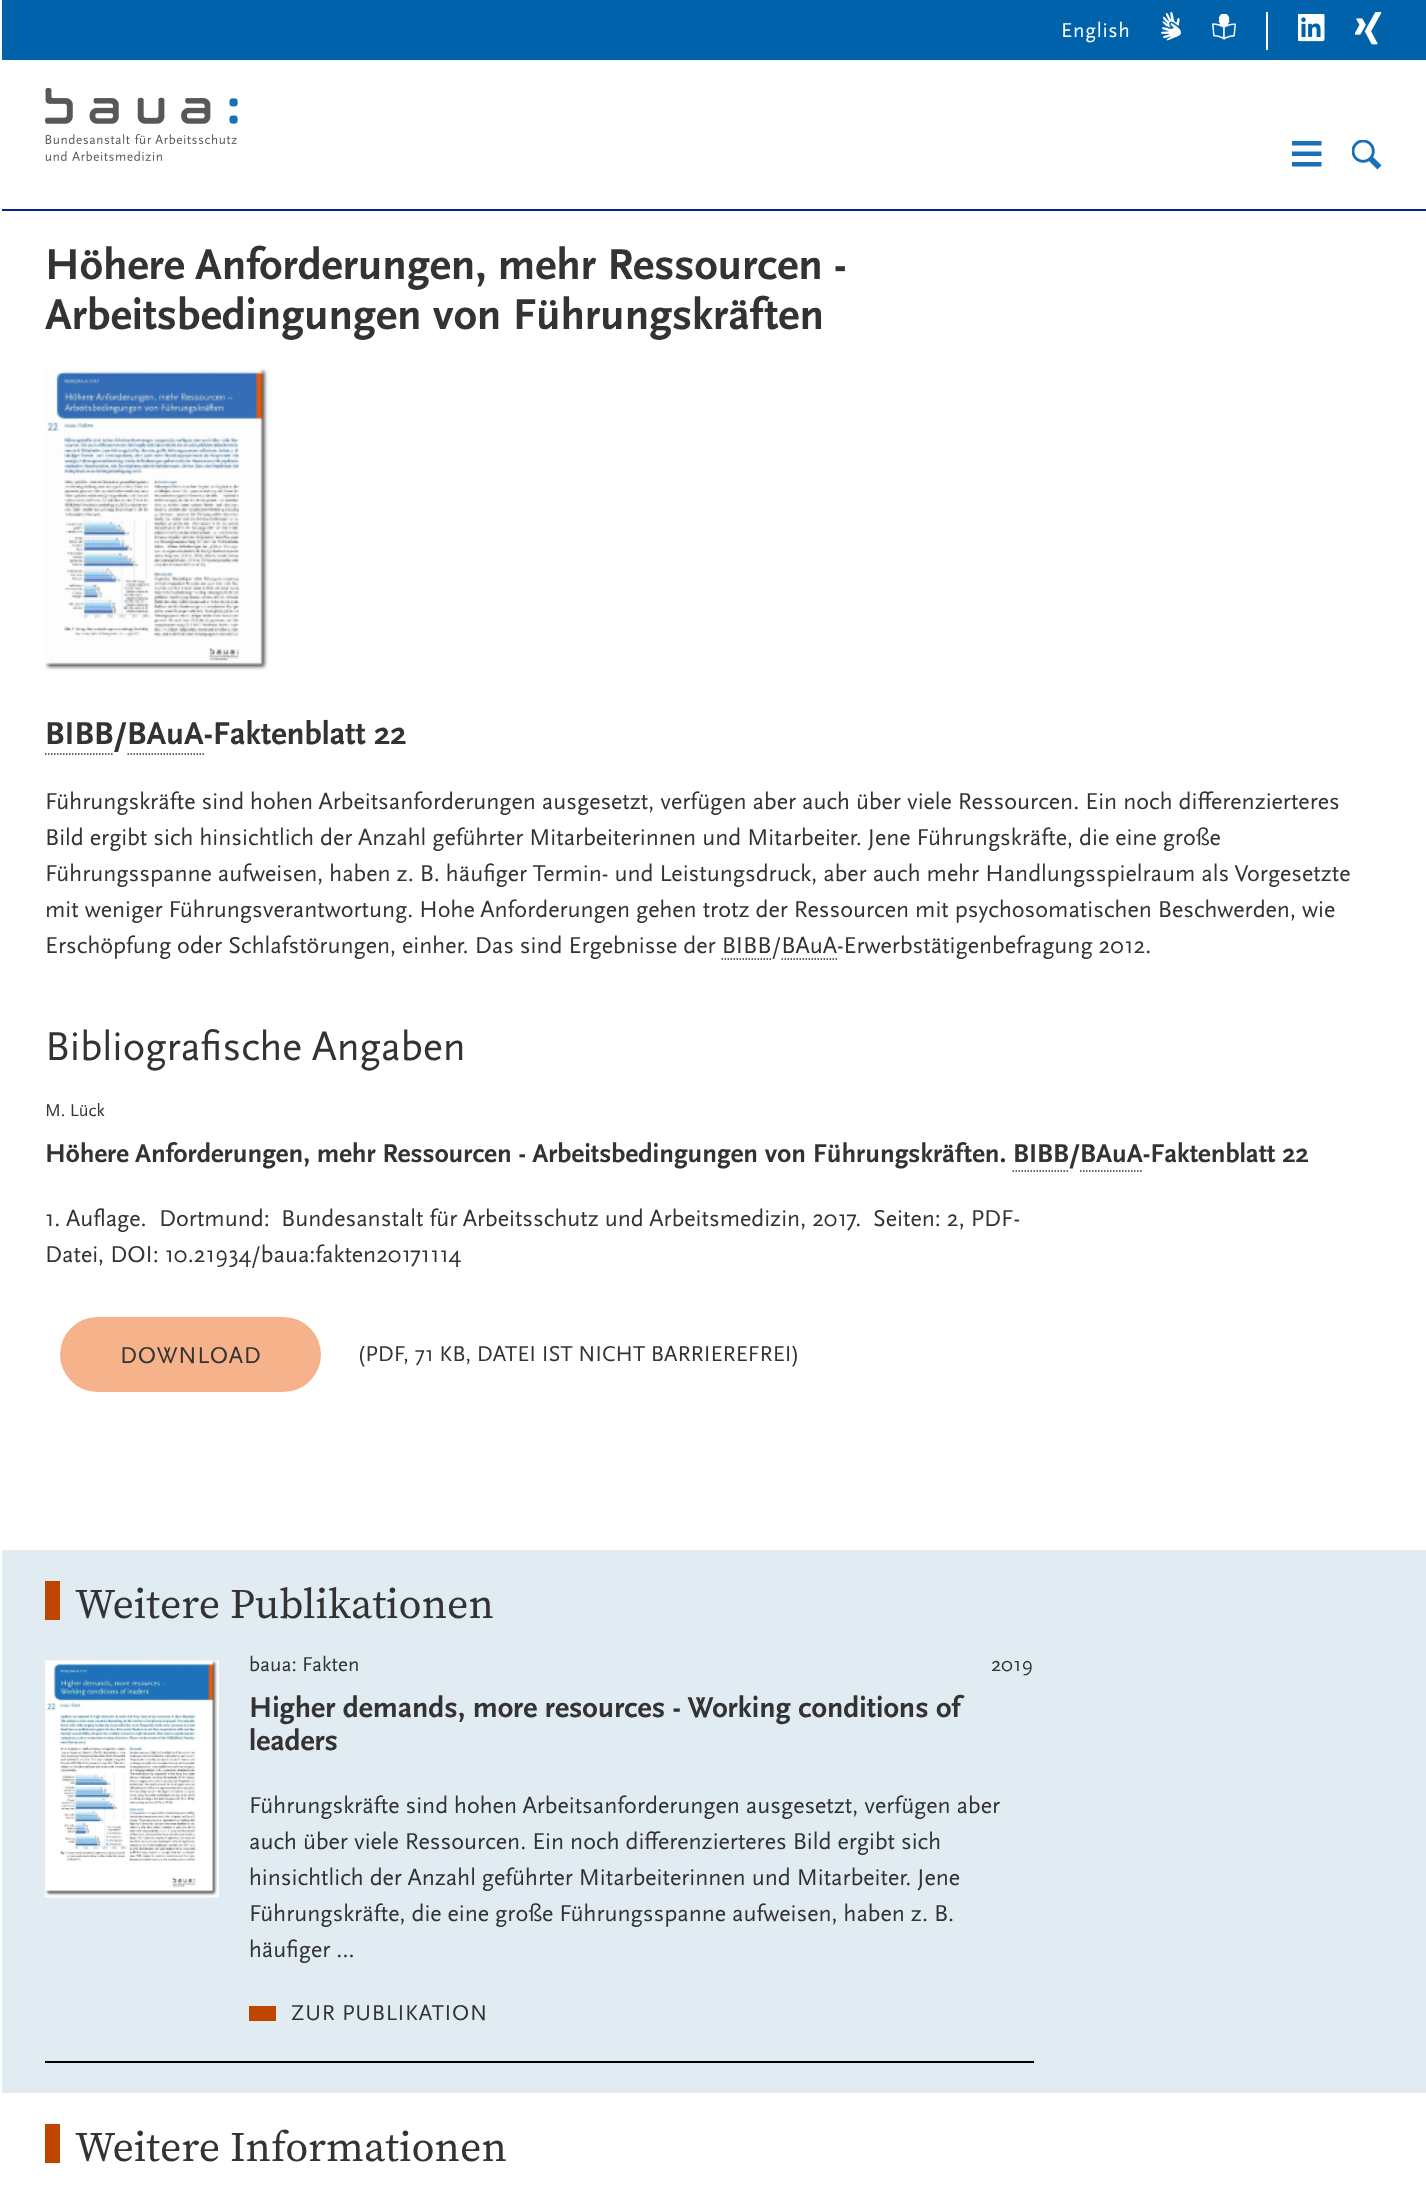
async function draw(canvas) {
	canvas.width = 1426;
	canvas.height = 2191;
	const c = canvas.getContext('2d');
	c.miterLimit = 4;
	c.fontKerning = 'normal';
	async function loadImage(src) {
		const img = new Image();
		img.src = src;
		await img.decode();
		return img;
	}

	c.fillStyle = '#fff';
	c.fillRect(0, 0, 1426, 2191);
	c.fillStyle = '#0062ab';
	c.fillRect(2, 0, 1424, 60);
	c.letterSpacing = '0.75px';
	c.font = '21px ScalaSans';
	c.fillStyle = '#fff';
	c.fillText('English', 1061, 37);
	c.drawImage(await loadImage('img1.png'), 1161, 12, 20, 29);
	c.drawImage(await loadImage('img2.png'), 1212, 14, 24, 26);
	c.fillRect(1266, 12, 2, 38);
	c.drawImage(await loadImage('img3.png'), 1298, 14, 27, 28);
	c.drawImage(await loadImage('img4.png'), 1355, 12, 27, 33);
	c.drawImage(await loadImage('img5.png'), 45, 87, 193, 74);
	c.drawImage(await loadImage('img6.png'), 1292, 141, 30, 26);
	c.drawImage(await loadImage('img7.png'), 1352, 140, 30, 30);
	c.fillStyle = '#091f92';
	c.fillRect(2, 209, 1424, 2);
	c.letterSpacing = '0px';
	c.font = 'bold 45px ScalaSans';
	c.fillStyle = '#333';
	c.fillText('Höhere Anforderungen, mehr Ressourcen -', 45, 279);
	c.fillText('Arbeitsbedingungen von Führungskräften', 45, 329);
	c.drawImage(await loadImage('img8.png'), 45, 369, 224, 302);
	c.font = 'bold 33px ScalaSans';
	c.fillText('BIBB/BAuA-Faktenblatt 22', 45, 744);
	c.beginPath();
	c.moveTo(45, 754);
	c.lineTo(114, 754);
	c.strokeStyle = '#333';
	c.lineWidth = 1.5;
	c.setLineDash([1.5, 1.5]);
	c.stroke();
	c.beginPath();
	c.moveTo(127.5, 754);
	c.lineTo(204, 754);
	c.stroke();
	c.font = '24px ScalaSans';
	for (const [text, x, y] of [
		['Führungskräfte sind hohen Arbeitsanforderungen ausgesetzt, verfügen aber auch über viele Ressourcen. Ein noch differenzierteres', 45, 809],
		['Bild ergibt sich hinsichtlich der Anzahl geführter Mitarbeiterinnen und Mitarbeiter. Jene Führungskräfte, die eine große', 45, 845],
		['Führungsspanne aufweisen, haben z. B. häufiger Termin- und Leistungsdruck, aber auch mehr Handlungsspielraum als Vorgesetzte', 45, 881],
		['mit weniger Führungsverantwortung. Hohe Anforderungen gehen trotz der Ressourcen mit psychosomatischen Beschwerden, wie', 45, 917],
		['Erschöpfung oder Schlafstörungen, einher. Das sind Ergebnisse der BIBB/BAuA-Erwerbstätigenbefragung 2012.', 45, 953],
	]) {
		c.fillText(text, x, y);
	}
	c.beginPath();
	c.moveTo(721.5, 959);
	c.lineTo(771, 959);
	c.stroke();
	c.beginPath();
	c.moveTo(781.5, 959);
	c.lineTo(837, 959);
	c.stroke();
	c.font = '42px ScalaSans';
	c.fillText('Bibliografische Angaben', 45, 1060);
	c.font = '18px ScalaSans';
	c.fillText('M. Lück', 45, 1116);
	c.font = 'bold 27px ScalaSans';
	c.fillText('Höhere Anforderungen, mehr Ressourcen - Arbeitsbedingungen von Führungskräften. BIBB/BAuA-Faktenblatt 22', 45, 1162);
	c.beginPath();
	c.moveTo(1012.5, 1171);
	c.lineTo(1069.5, 1171);
	c.stroke();
	c.beginPath();
	c.moveTo(1080, 1171);
	c.lineTo(1143, 1171);
	c.stroke();
	c.font = '24px ScalaSans';
	for (const [text, x, y] of [
		['1. Auflage.', 45, 1226],
		['Dortmund:', 159, 1226],
		['Bundesanstalt für Arbeitsschutz und Arbeitsmedizin, 2017.', 281, 1226],
		['Seiten: 2, PDF-', 873, 1226],
		['Datei, DOI: 10.21934/baua:fakten20171114', 45, 1262],
	]) {
		c.fillText(text, x, y);
	}
	c.fillStyle = '#f6b38b';
	c.beginPath();
	c.roundRect(60, 1317, 261, 75, 37.5);
	c.fill();
	c.letterSpacing = '0.75px';
	c.fillStyle = '#333';
	c.fillText('DOWNLOAD', 120, 1363);
	c.letterSpacing = '0px';
	c.font = '22.5px ScalaSans';
	c.fillText('(PDF, 71 KB, DATEI IST NICHT BARRIEREFREI)', 357, 1361);
	c.fillStyle = '#e0ebf2';
	c.fillRect(2, 1550, 1424, 543);
	c.fillStyle = '#c04600';
	c.fillRect(45, 1581, 15, 39);
	c.font = '42px Source Serif Pro';
	c.fillStyle = '#333';
	c.fillText('Weitere Publikationen', 75, 1618);
	c.fillStyle = '#000';
	c.fillRect(45, 2061, 989, 2);
	c.drawImage(await loadImage('img9.png'), 45, 1660, 174, 238);
	c.font = '21px ScalaSans';
	c.fillStyle = '#333';
	c.fillText('baua: Fakten', 249, 1671);
	c.fillText('2019', 991, 1671);
	c.font = 'bold 30px ScalaSans';
	c.fillText('Higher demands, more resources - Working conditions of', 249, 1717);
	c.fillText('leaders', 249, 1750);
	c.font = '24px ScalaSans';
	for (const [text, x, y] of [
		['Führungskräfte sind hohen Arbeitsanforderungen ausgesetzt, verfügen aber', 249, 1813],
		['auch über viele Ressourcen. Ein noch differenzierteres Bild ergibt sich', 249, 1849],
		['hinsichtlich der Anzahl geführter Mitarbeiterinnen und Mitarbeiter. Jene', 249, 1885],
		['Führungskräfte, die eine große Führungsspanne aufweisen, haben z. B.', 249, 1921],
		['häufiger …', 249, 1957],
	]) {
		c.fillText(text, x, y);
	}
	c.fillStyle = '#c04600';
	c.fillRect(249, 2006, 27, 15);
	c.letterSpacing = '0.75px';
	c.font = '22.5px ScalaSans';
	c.fillStyle = '#333';
	c.fillText('ZUR PUBLIKATION', 291, 2020);
	c.fillStyle = '#c04600';
	c.fillRect(45, 2124, 15, 39);
	c.letterSpacing = '0px';
	c.font = '42px Source Serif Pro';
	c.fillStyle = '#333';
	c.fillText('Weitere Informationen', 75, 2161);
}

draw(document.querySelector('canvas'));
